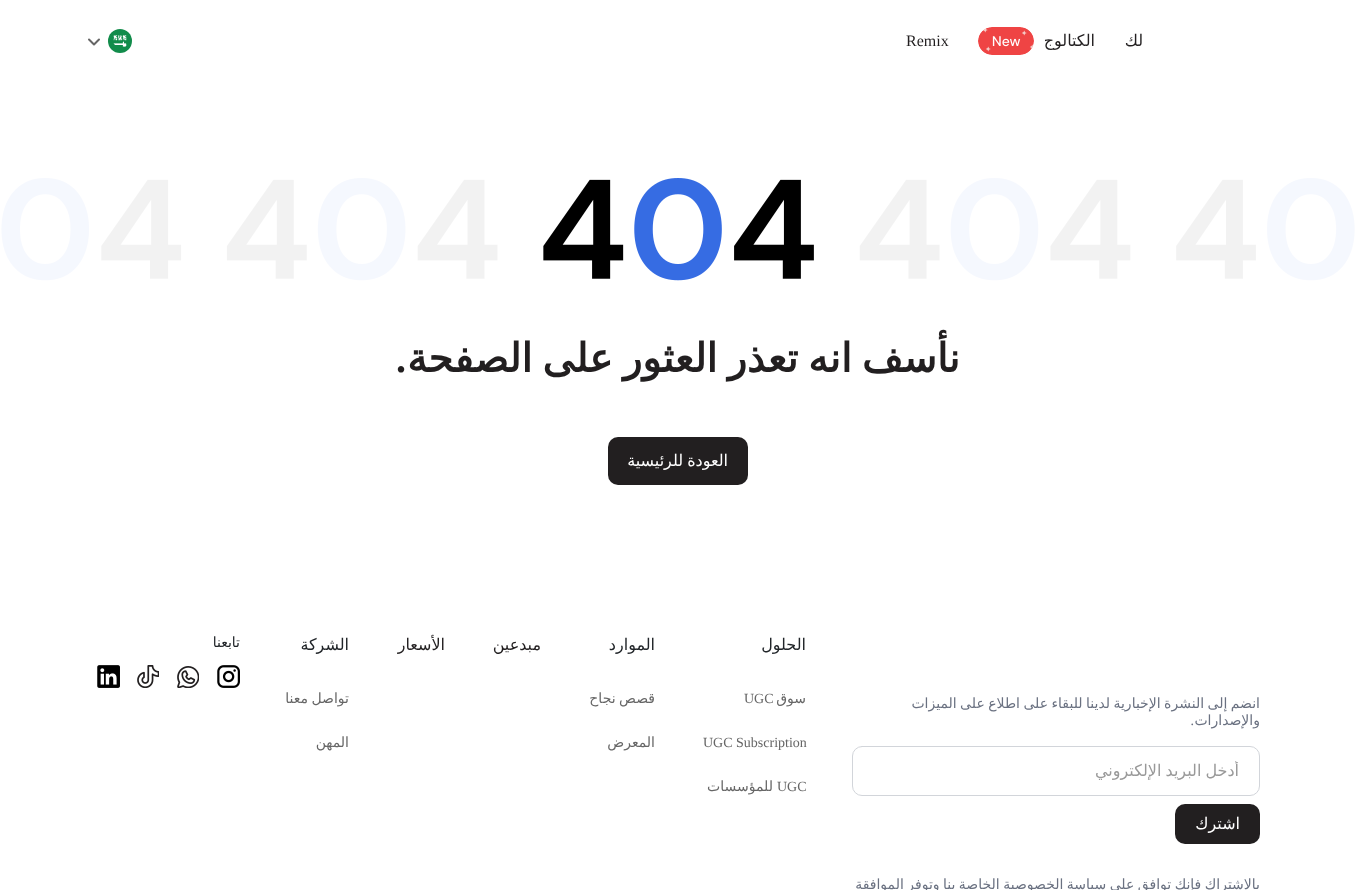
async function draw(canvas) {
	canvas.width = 1356;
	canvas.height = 890;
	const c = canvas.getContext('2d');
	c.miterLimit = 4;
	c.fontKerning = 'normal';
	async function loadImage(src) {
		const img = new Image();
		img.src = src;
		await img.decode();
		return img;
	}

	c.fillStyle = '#fff';
	c.fillRect(0, 0, 1356, 890);
	c.direction = 'rtl';
	c.font = '16px DejaVu Sans';
	c.fillStyle = '#221f20';
	c.fillText('لك', 1143, 46);
	c.fillText('الكتالوج', 1095, 46);
	c.drawImage(await loadImage('img1.png'), 978, 27, 56, 28);
	c.direction = 'ltr';
	c.font = '16px Liberation Serif';
	c.fillText('Remix', 906, 46);
	c.drawImage(await loadImage('img2.png'), 108, 29, 24, 24);
	c.beginPath();
	c.moveTo(99, 39.5);
	c.lineTo(94, 44.5);
	c.lineTo(89, 39.5);
	c.strokeStyle = '#666';
	c.lineWidth = 2;
	c.lineCap = 'round';
	c.lineJoin = 'round';
	c.stroke();
	c.drawImage(await loadImage('img3.png'), 1, 178, 1354, 103);
	c.wordSpacing = '-2.75px';
	c.direction = 'rtl';
	c.font = 'bold 40px DejaVu Sans';
	c.fillText('نأسف انه تعذر العثور على الصفحة', 960, 372);
	c.wordSpacing = '0px';
	c.font = 'bold 40px Liberation Serif';
	c.fillText('.', 406, 372);
	c.beginPath();
	c.roundRect(608, 437, 140, 48, 10);
	c.fill();
	c.wordSpacing = '-1px';
	c.font = '16px DejaVu Sans';
	c.fillStyle = '#fff';
	c.fillText('العودة للرئيسية', 728, 466);
	c.wordSpacing = '0px';
	c.fillStyle = '#212529';
	c.fillText('الحلول', 806, 650);
	c.font = '14px DejaVu Sans';
	c.fillStyle = '#666';
	c.fillText('سوق', 806, 703);
	c.direction = 'ltr';
	c.font = '14px Liberation Serif';
	for (const [text, x, y] of [
		['UGC', 744, 703],
		['UGC Subscription', 703, 747],
		['UGC', 777, 791],
	]) {
		c.fillText(text, x, y);
	}
	c.direction = 'rtl';
	c.font = '14px DejaVu Sans';
	c.fillText('للمؤسسات', 773, 791);
	c.font = '16px DejaVu Sans';
	c.fillStyle = '#212529';
	c.fillText('الموارد', 655, 650);
	c.wordSpacing = '-1px';
	c.font = '14px DejaVu Sans';
	c.fillStyle = '#666';
	c.fillText('قصص نجاح', 655, 703);
	c.wordSpacing = '0px';
	c.fillText('المعرض', 655, 747);
	c.font = '16px DejaVu Sans';
	c.fillStyle = '#221f20';
	c.fillText('مبدعين', 541, 650);
	c.fillText('الأسعار', 445, 650);
	c.fillStyle = '#212529';
	c.fillText('الشركة', 349, 650);
	c.wordSpacing = '-1px';
	c.font = '14px DejaVu Sans';
	c.fillStyle = '#666';
	c.fillText('تواصل معنا', 349, 703);
	c.wordSpacing = '0px';
	c.fillText('المهن', 349, 747);
	c.fillStyle = '#212529';
	c.fillText('تابعنا', 240, 647);
	c.drawImage(await loadImage('img4.png'), 217, 665, 23, 23);
	c.drawImage(await loadImage('img5.png'), 177, 666, 22, 22);
	c.drawImage(await loadImage('img6.png'), 137, 665, 22, 23);
	c.drawImage(await loadImage('img7.png'), 97, 665, 23, 23);
	c.wordSpacing = '-1px';
	c.fillStyle = '#6a7181';
	c.fillText('انضم إلى النشرة الإخبارية لدينا للبقاء على اطلاع على الميزات', 1260, 708);
	c.wordSpacing = '0px';
	c.fillText('والإصدارات', 1260, 725);
	c.font = '14px Liberation Serif';
	c.fillText('.', 1194, 725);
	c.beginPath();
	c.roundRect(852.5, 746.5, 407, 49, 9.5);
	c.strokeStyle = '#d2d5da';
	c.lineWidth = 1;
	c.lineJoin = 'miter';
	c.stroke();
	c.save();
	c.beginPath();
	c.rect(873, 761, 366, 19);
	c.clip();
	c.wordSpacing = '-1px';
	c.font = '16px DejaVu Sans';
	c.fillStyle = '#999';
	c.fillText('أدخل البريد الإلكتروني', 1239, 776);
	c.restore();
	c.fillStyle = '#221f20';
	c.beginPath();
	c.roundRect(1175, 804, 85, 40, 10);
	c.fill();
	c.font = '16px DejaVu Sans';
	c.fillStyle = '#fff';
	c.fillText('اشترك', 1240, 829);
	c.wordSpacing = '-1px';
	c.font = '14px DejaVu Sans';
	c.fillStyle = '#6a7181';
	c.fillText('بالاشتراك فإنك توافق على سياسة الخصوصية الخاصة بنا وتوفر الموافقة', 1260, 889);
}

draw(document.querySelector('canvas'));
